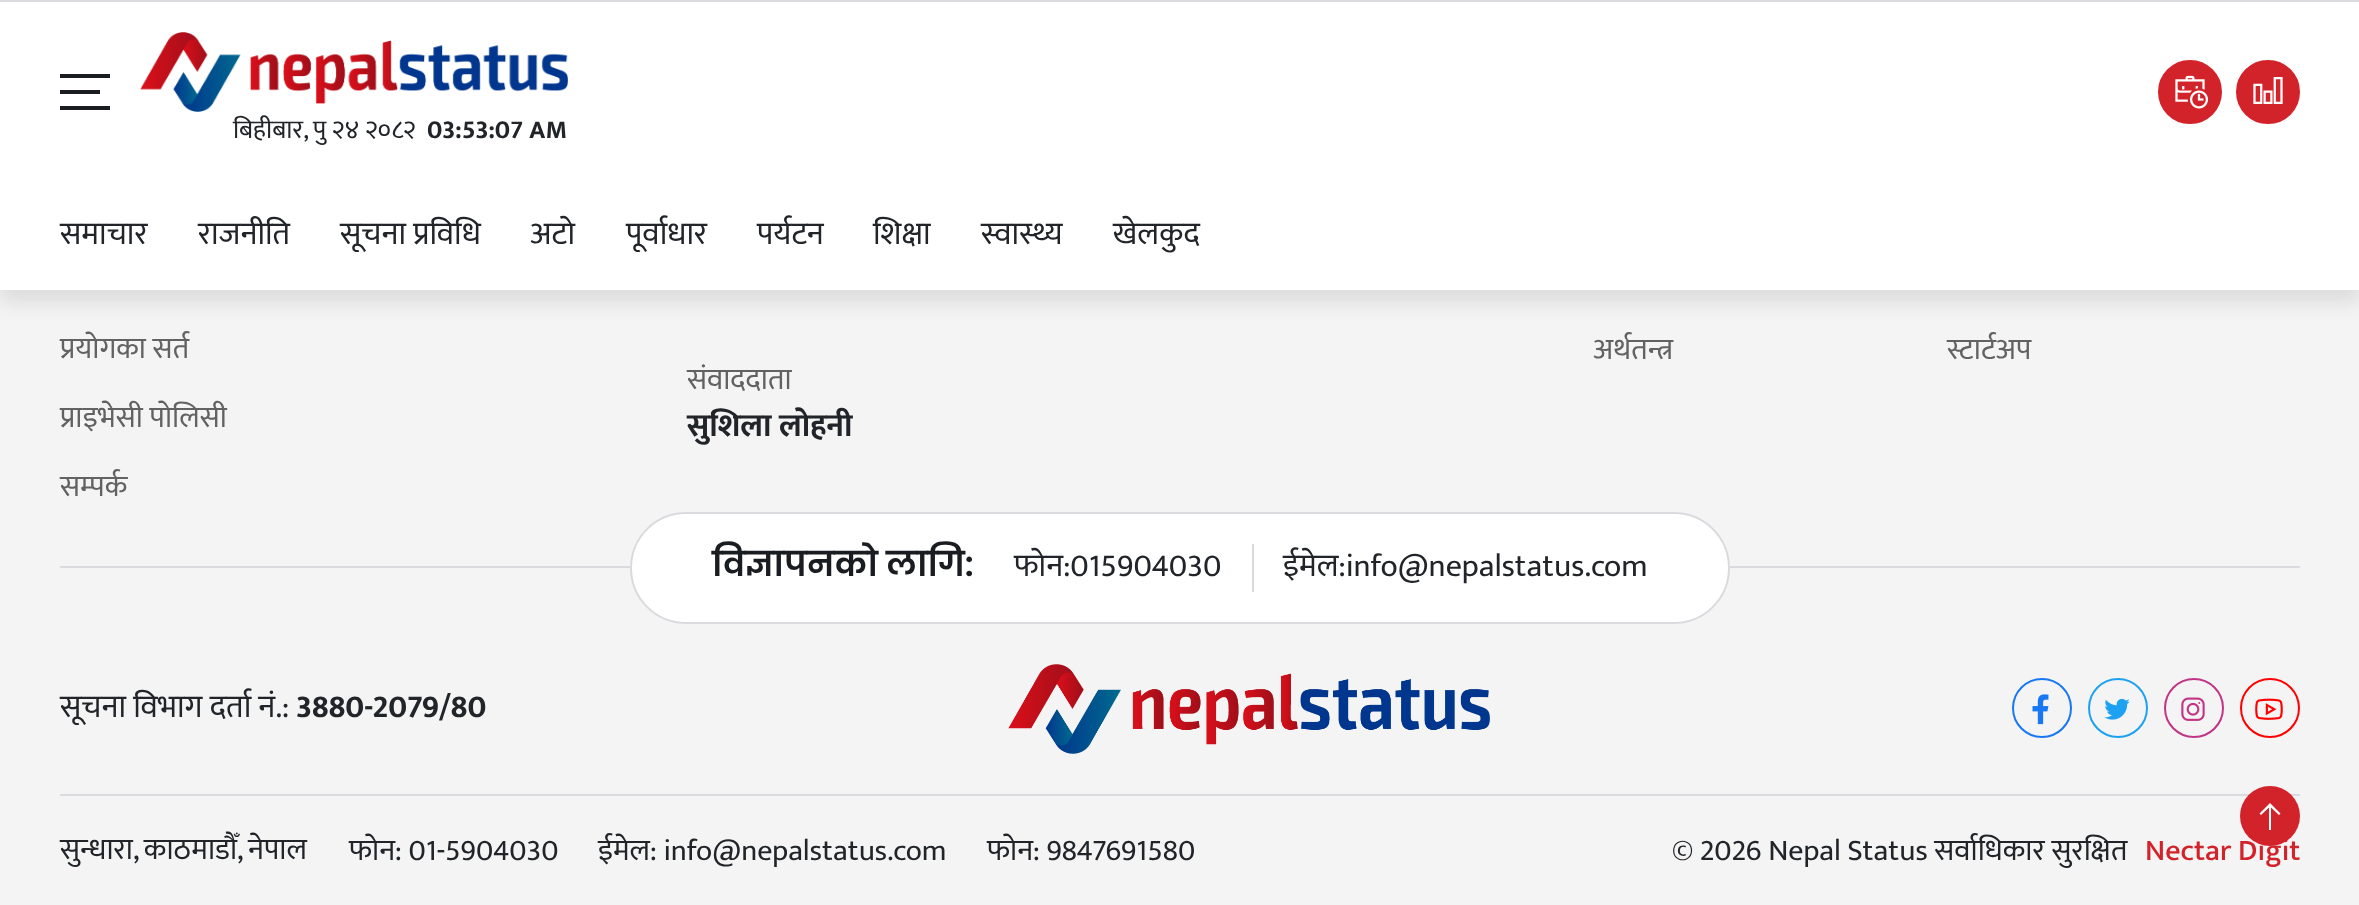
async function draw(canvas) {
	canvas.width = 2359;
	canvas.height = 905;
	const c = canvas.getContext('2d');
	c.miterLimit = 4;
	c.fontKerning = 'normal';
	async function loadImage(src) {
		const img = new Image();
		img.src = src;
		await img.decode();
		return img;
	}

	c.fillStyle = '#f4f4f4';
	c.fillRect(0, 0, 2359, 905);
	c.fillStyle = '#dadbdf';
	c.fillRect(0, 0, 2359, 2);
	c.fillStyle = '#0000001a';
	c.filter = 'blur(10px)';
	c.beginPath();
	c.rect(0, 194, 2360, 108);
	c.fill();
	c.filter = 'none';
	c.fillStyle = '#fff';
	c.fillRect(0, 2, 2359, 288);
	c.fillStyle = '#d3232a';
	c.beginPath();
	c.arc(2190, 92, 31, 0, 2 * Math.PI);
	c.fill();
	c.strokeStyle = '#d3232a';
	c.lineWidth = 2;
	c.stroke();
	c.drawImage(await loadImage('img1.png'), 2175, 75, 33, 34);
	c.beginPath();
	c.arc(2268, 92, 31, 0, 2 * Math.PI);
	c.fill();
	c.stroke();
	c.drawImage(await loadImage('img2.png'), 2253, 77, 30, 27);
	for (const [x, y, w, h, color] of [
		[60, 74, 50, 4, '#191c20'],
		[60, 90, 40, 4, '#191c20'],
		[60, 106, 50, 4, '#191c20'],
	]) {
		c.fillStyle = color;
		c.fillRect(x, y, w, h);
	}
	c.drawImage(await loadImage('img3.png'), 140, 32, 428, 80);
	c.wordSpacing = '-0.5px';
	c.font = '26px Mukta';
	c.fillStyle = '#212529';
	c.fillText('बिहीबार, पु २४ २०८२', 233, 138);
	c.wordSpacing = '0px';
	c.font = 'bold 26px Mukta';
	c.fillText('03:53:07 AM', 427, 138);
	c.font = '32px Mukta';
	for (const [text, x, y] of [
		['समाचार', 60, 244],
		['राजनीति', 198, 244],
		['सूचना प्रविधि', 340, 244],
		['अटाे', 530, 244],
		['पूर्वाधार', 626, 244],
		['पर्यटन', 757, 244],
		['शिक्षा', 873, 244],
		['स्वास्थ्य', 981, 244],
		['खेलकुद', 1113, 244],
	]) {
		c.fillText(text, x, y);
	}
	c.font = '30px Mukta';
	c.fillStyle = '#626262';
	for (const [text, x, y] of [
		['प्रयोगका सर्त', 60, 358],
		['प्राइभेसी पोलिसी', 60, 427],
		['सम्पर्क', 60, 496],
		['अर्थतन्त्र', 1593, 359],
		['स्टार्टअप', 1947, 359],
		['संवाददाता', 687, 389],
	]) {
		c.fillText(text, x, y);
	}
	c.font = 'bold 32px Mukta';
	c.fillStyle = '#212529';
	c.fillText('सुशिला लोहनी', 687, 436);
	c.fillStyle = '#dadbdf';
	c.fillRect(60, 566, 2240, 2);
	c.fillStyle = '#fff';
	c.beginPath();
	c.roundRect(631, 513, 1098, 110, 55);
	c.fill();
	c.strokeStyle = '#dadbdf';
	c.stroke();
	c.font = '600 34px Poppins';
	c.fillStyle = '#191c20';
	c.fillText('विज्ञापनको लागि:', 712, 576);
	c.font = '32px Mukta';
	c.fillStyle = '#212529';
	c.fillText('फोन:015904030', 1014, 576);
	c.fillStyle = '#dadbdf';
	c.fillRect(1252, 544, 2, 48);
	c.fillStyle = '#212529';
	c.fillText('ईमेल:info@nepalstatus.com', 1283, 576);
	c.fillStyle = '#dadbdf';
	c.fillRect(60, 794, 2240, 2);
	c.fillStyle = '#212529';
	c.fillText('सूचना विभाग दर्ता नं.:', 60, 717);
	c.font = 'bold 32px Mukta';
	c.fillText('3880-2079/80', 296, 717);
	c.drawImage(await loadImage('img4.png'), 1008, 664, 482, 90);
	c.beginPath();
	c.arc(2042, 708, 29, 0, 2 * Math.PI);
	c.strokeStyle = '#1877f2';
	c.stroke();
	c.drawImage(await loadImage('img5.png'), 2032, 694, 17, 31);
	c.beginPath();
	c.arc(2118, 708, 29, 0, 2 * Math.PI);
	c.strokeStyle = '#1da1f2';
	c.stroke();
	c.drawImage(await loadImage('img6.png'), 2104, 698, 26, 22);
	c.beginPath();
	c.arc(2194, 708, 29, 0, 2 * Math.PI);
	c.strokeStyle = '#c13584';
	c.stroke();
	c.drawImage(await loadImage('img7.png'), 2181, 697, 24, 24);
	c.beginPath();
	c.arc(2270, 708, 29, 0, 2 * Math.PI);
	c.strokeStyle = '#f00';
	c.stroke();
	c.drawImage(await loadImage('img8.png'), 2255, 698, 28, 22);
	c.wordSpacing = '-1px';
	c.font = '30px Mukta';
	c.fillText('सुन्धारा, काठमाडौँ, नेपाल', 60, 859);
	c.wordSpacing = '0px';
	for (const [text, x, y] of [
		['फोन: 01-5904030', 349, 860],
		['ईमेल: info@nepalstatus.com', 598, 860],
		['फोन: 9847691580', 987, 860],
		['© 2026 Nepal Status सर्वाधिकार सुरक्षित', 1672, 860],
	]) {
		c.fillText(text, x, y);
	}
	c.font = '500 30px Mukta';
	c.fillStyle = '#d3232a';
	c.fillText('Nectar Digit', 2145, 860);
	c.beginPath();
	c.arc(2270, 816, 30, 0, 2 * Math.PI);
	c.fill();
	c.fillStyle = '#fff';
	c.beginPath();
	c.moveTo(2270, 803);
	c.lineTo(2259.5, 813.5);
	c.lineTo(2261, 815);
	c.lineTo(2269, 807.5);
	c.lineTo(2269, 830);
	c.lineTo(2271, 830);
	c.lineTo(2271, 807.5);
	c.lineTo(2279, 815);
	c.lineTo(2280.5, 813.5);
	c.closePath();
	c.fill();
}

draw(document.querySelector('canvas'));
